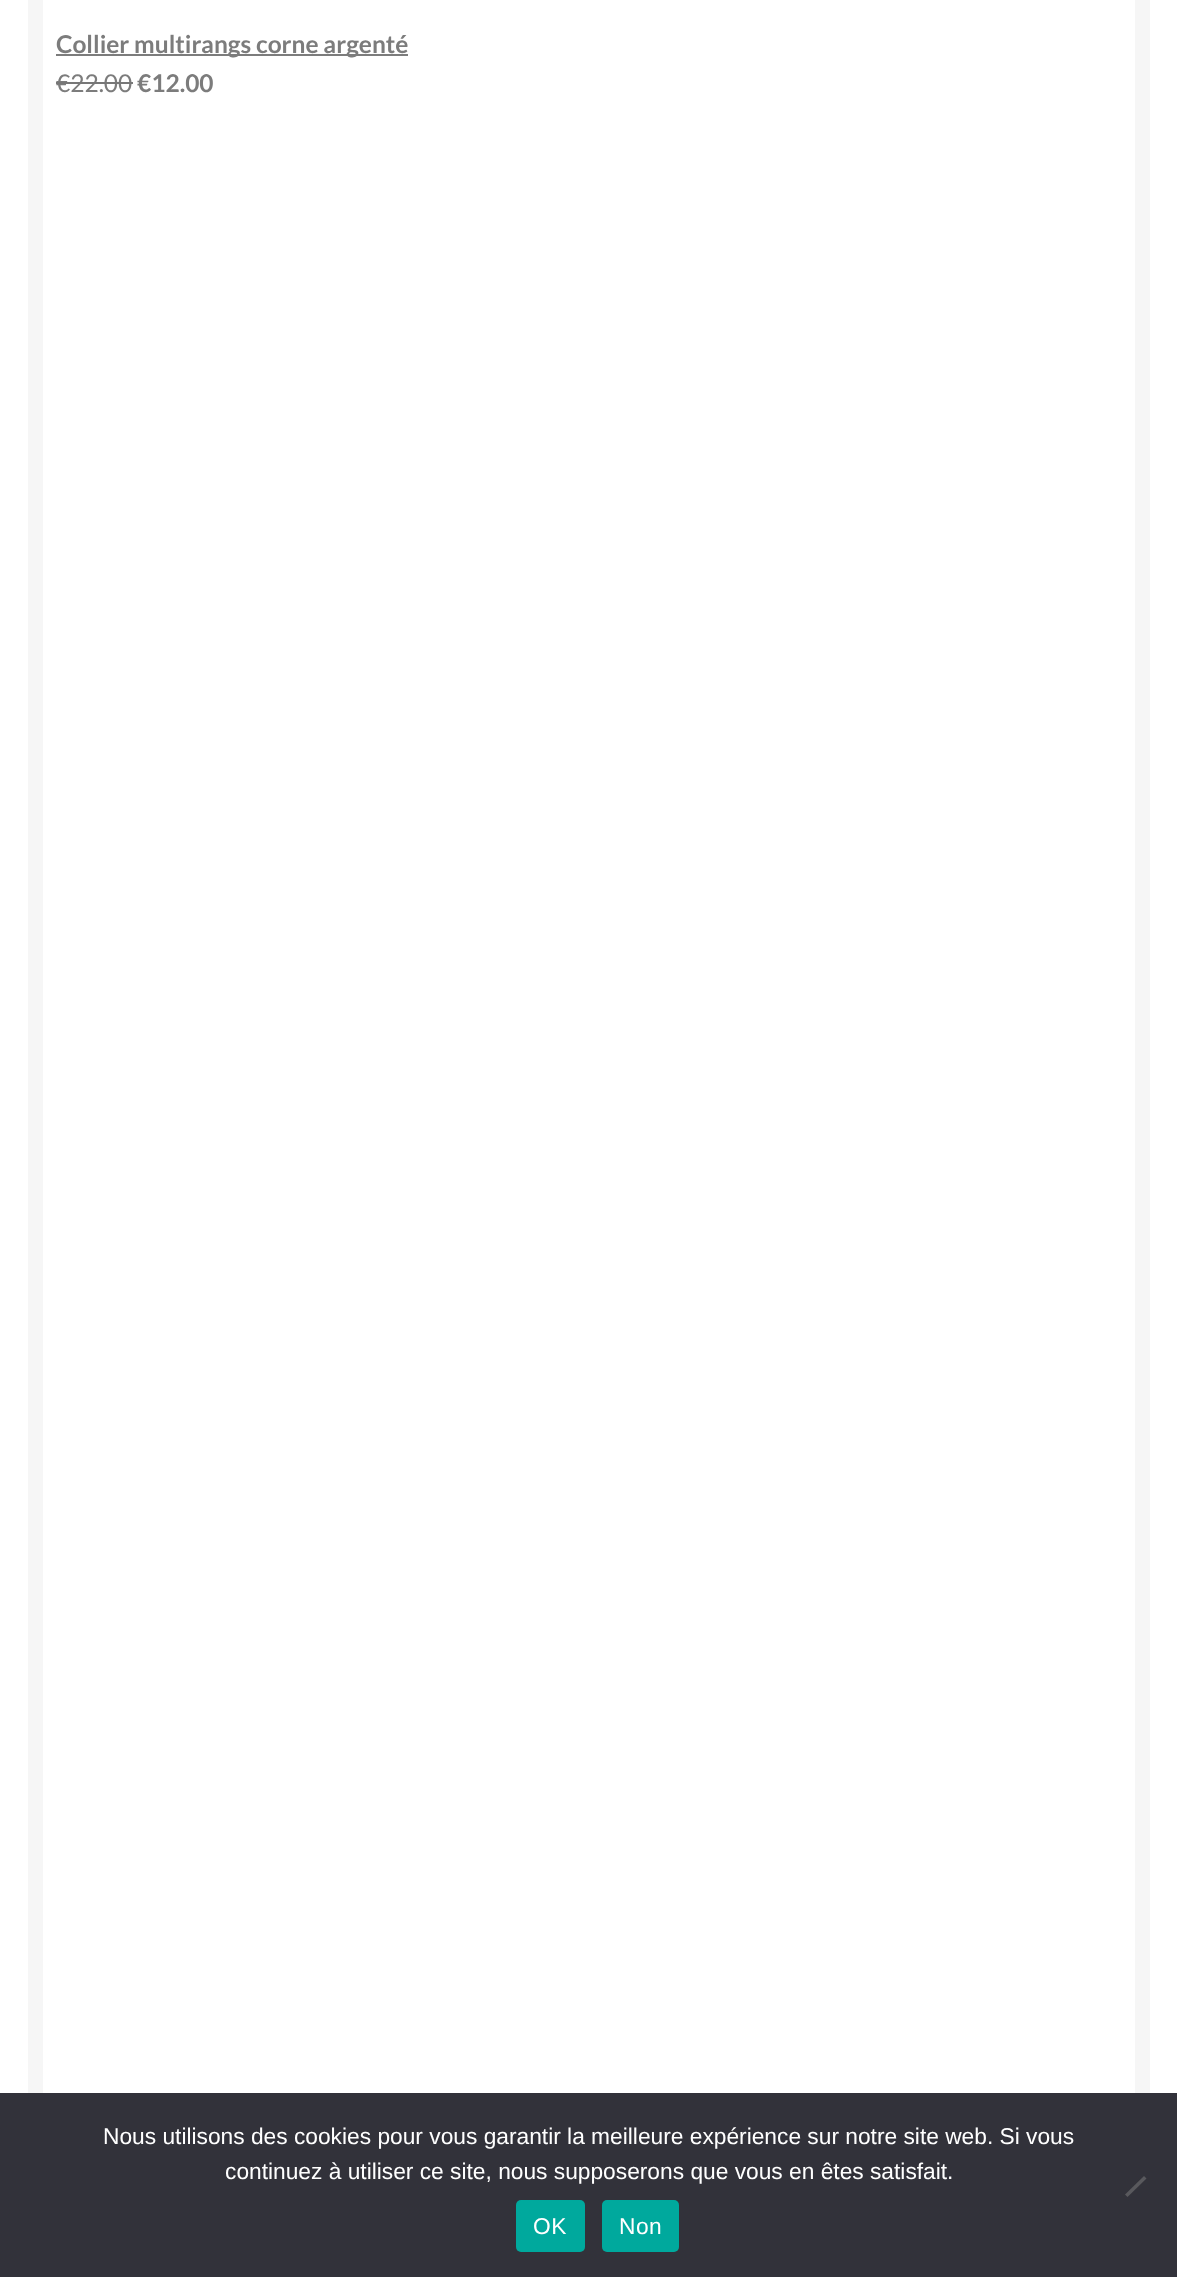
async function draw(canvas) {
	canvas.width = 1177;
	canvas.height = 2277;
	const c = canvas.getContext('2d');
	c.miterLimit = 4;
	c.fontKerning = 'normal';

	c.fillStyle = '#fff';
	c.fillRect(0, 0, 1177, 2277);
	c.strokeStyle = '#f6f6f6';
	c.lineWidth = 15;
	c.strokeRect(35.5, -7.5, 1107, 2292);
	c.fillStyle = '#7c7c7c';
	c.fillRect(56, 54, 352, 2);
	c.font = 'bold 24.5px Lato';
	c.fillText('Collier multirangs corne argenté', 56, 53);
	c.font = '24.5px Lato';
	c.fillText('€22.00', 56, 92);
	c.fillStyle = '#777';
	c.fillRect(56, 82, 77, 2);
	c.font = 'bold 24.5px Lato';
	c.fillStyle = '#7c7c7c';
	c.fillText('€12.00', 137, 92);
	c.fillStyle = '#32323a';
	c.fillRect(0, 2093, 1177, 184);
	c.font = '22.75px Liberation Sans';
	c.fillStyle = '#fff';
	c.fillText('Nous utilisons des cookies pour vous garantir la meilleure expérience sur notre site web. Si vous', 103, 2144);
	c.fillText('continuez à utiliser ce site, nous supposerons que vous en êtes satisfait.', 225, 2179);
	c.fillStyle = '#59595d';
	c.beginPath();
	c.moveTo(1144, 2176);
	c.lineTo(1146.5, 2178.5);
	c.lineTo(1127.5, 2197);
	c.lineTo(1125, 2194.5);
	c.closePath();
	c.fill();
	c.fillStyle = '#00a99d';
	c.beginPath();
	c.roundRect(516, 2200, 69, 52, 5);
	c.fill();
	c.letterSpacing = '0.5px';
	c.fillStyle = '#fff';
	c.fillText('OK', 533, 2234);
	c.fillStyle = '#00a99d';
	c.beginPath();
	c.roundRect(602, 2200, 77, 52, 5);
	c.fill();
	c.fillStyle = '#fff';
	c.fillText('Non', 619, 2234);
}

draw(document.querySelector('canvas'));
